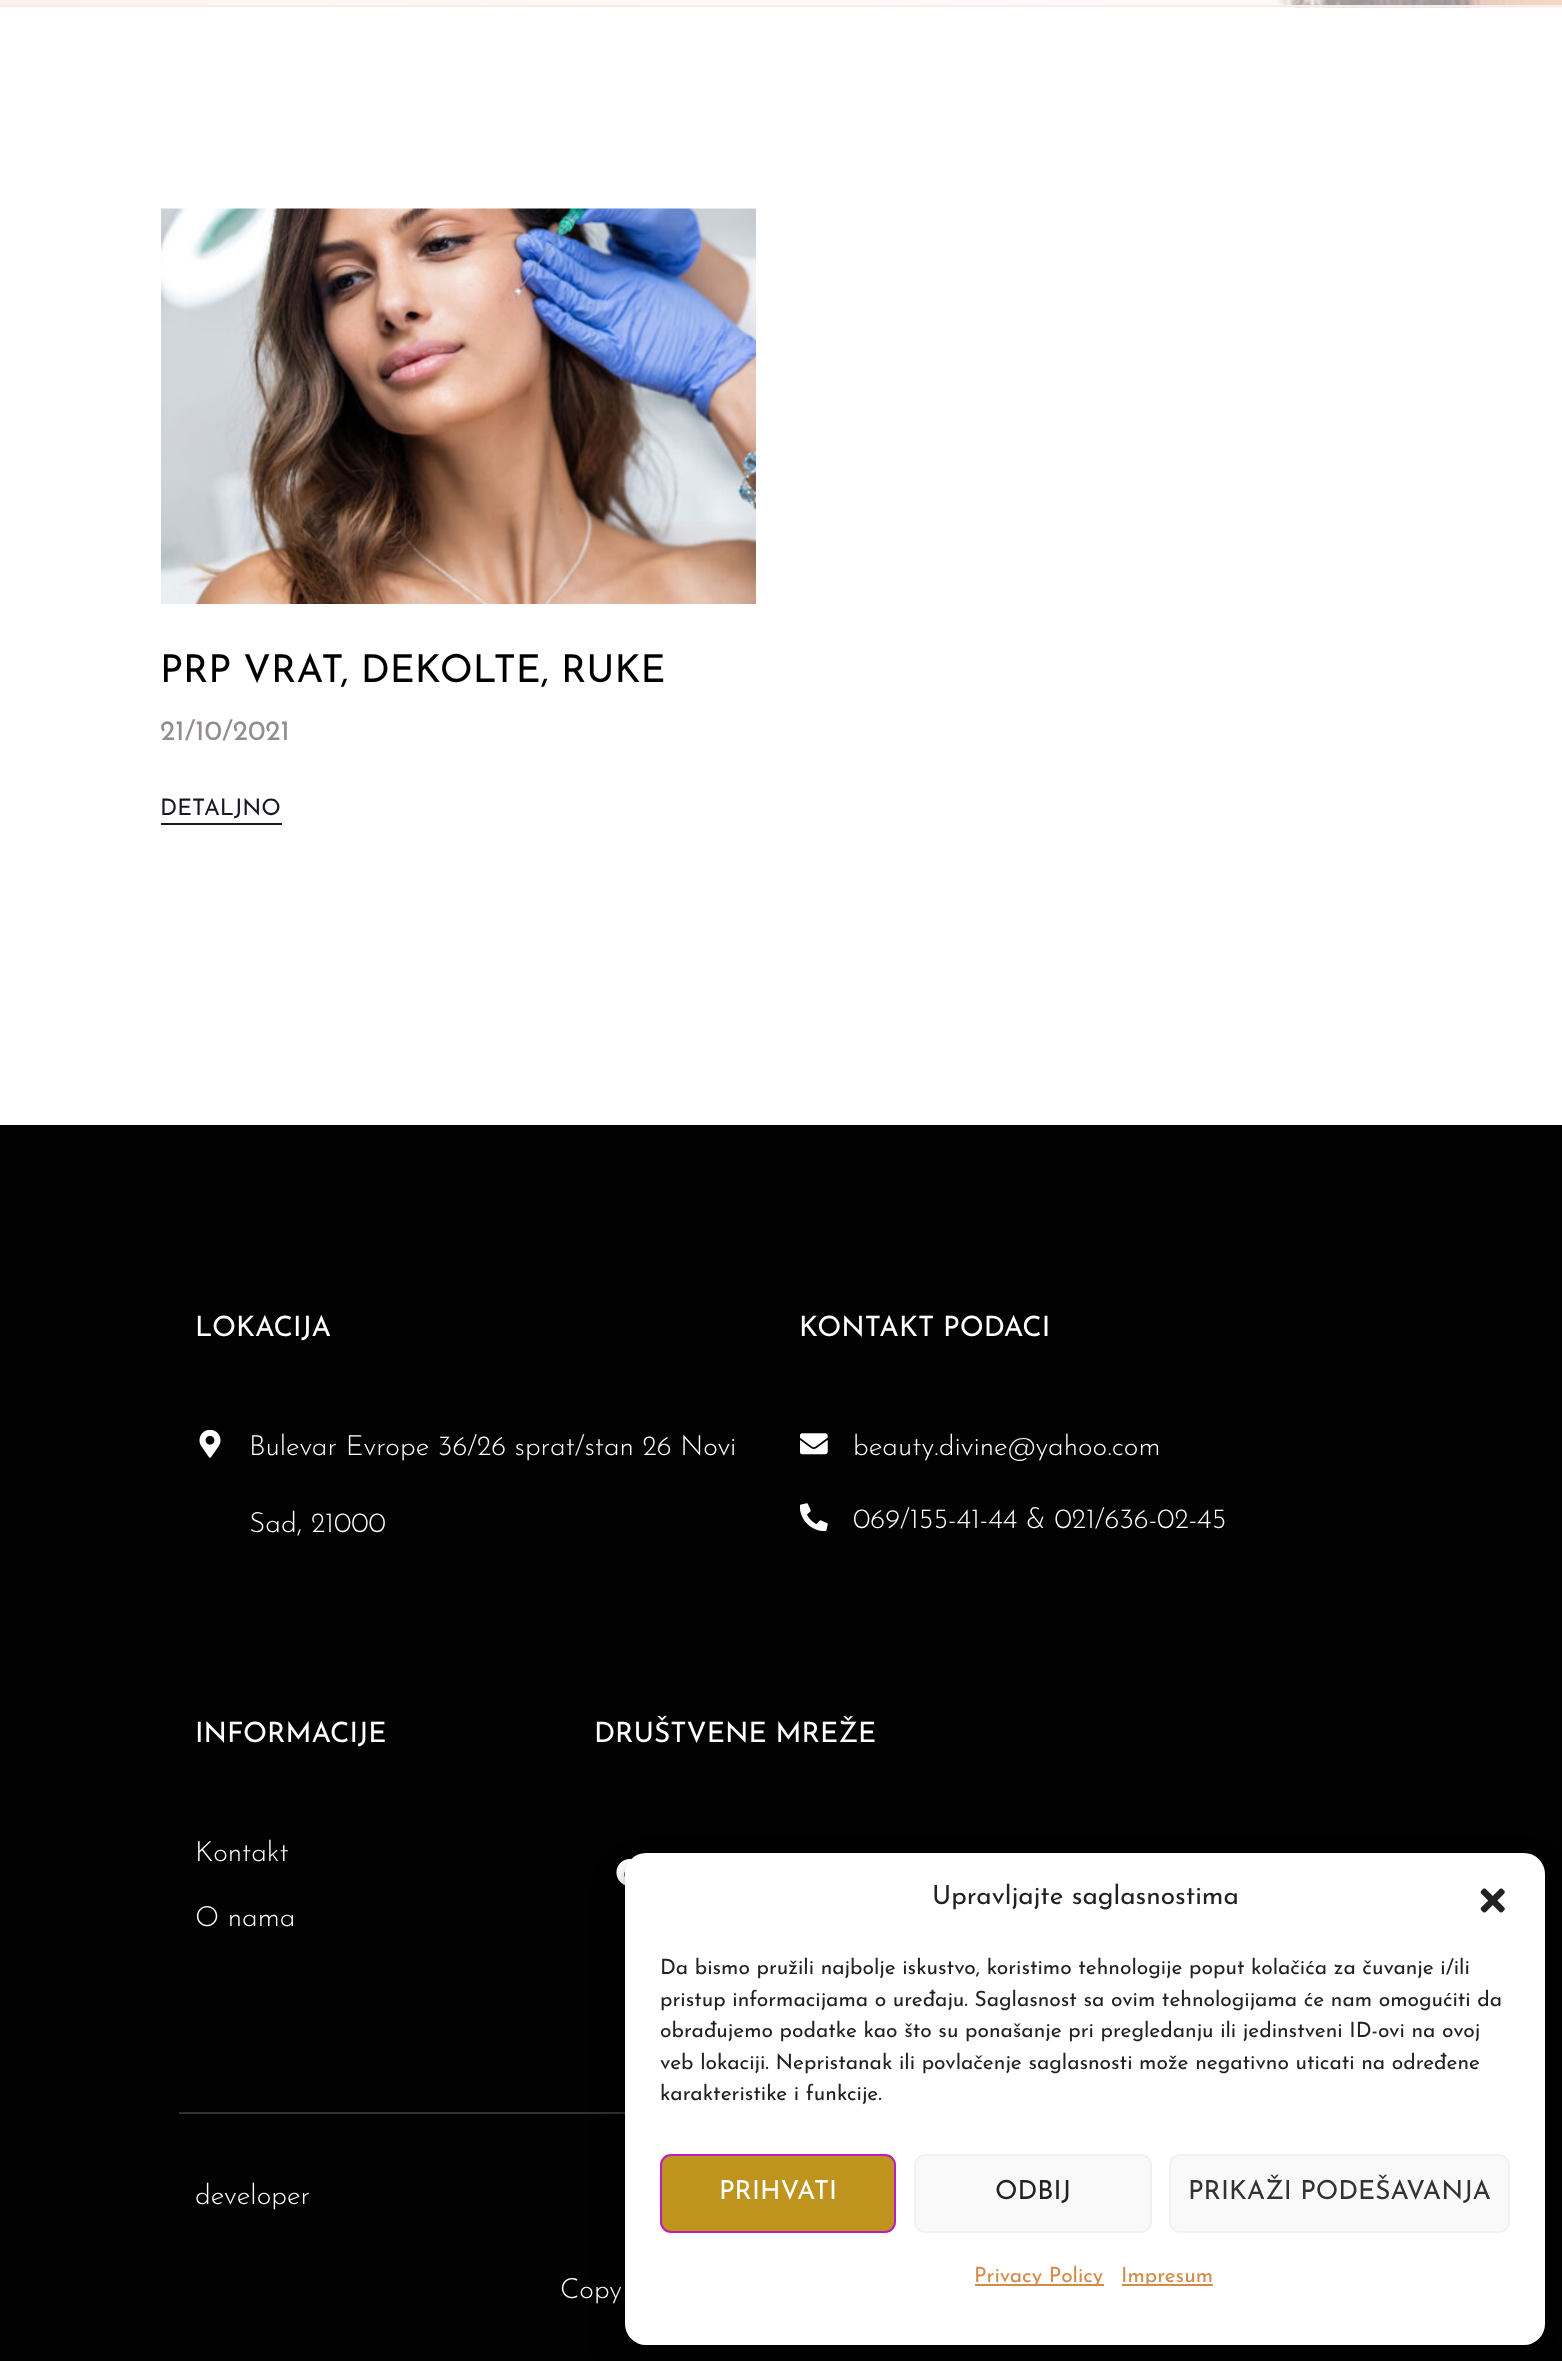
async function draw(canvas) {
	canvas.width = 1562;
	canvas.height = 2361;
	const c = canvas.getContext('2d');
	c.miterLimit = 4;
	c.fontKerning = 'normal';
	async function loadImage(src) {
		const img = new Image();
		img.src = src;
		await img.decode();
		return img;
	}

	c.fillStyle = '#fff';
	c.fillRect(0, 0, 1562, 2361);
	c.drawImage(await loadImage('img1.png'), 0, 0, 1562, 8);
	c.fillStyle = '#feebe7';
	c.fillRect(0, 5, 1562, 2);
	c.drawImage(await loadImage('img2.png'), 161, 208, 595, 396);
	c.font = '100 38.5px Josefin Sans';
	c.fillStyle = '#000';
	c.fillText('PRP VRAT, DEKOLTE, RUKE', 160, 682);
	c.font = '100 28px Josefin Sans';
	c.fillStyle = '#938d91';
	c.fillText('21/10/2021', 160, 740);
	c.font = '100 22.75px Josefin Sans';
	c.fillStyle = '#181823';
	c.fillText('DETALJNO', 160, 815);
	c.fillRect(161, 823, 121, 2);
	c.fillStyle = '#020202';
	c.fillRect(0, 1125, 1562, 1236);
	c.font = '100 28px Josefin Sans';
	c.fillStyle = '#fff';
	c.fillText('LOKACIJA', 195, 1336);
	c.drawImage(await loadImage('img3.png'), 199, 1430, 22, 28);
	c.font = '100 28px "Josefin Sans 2"';
	c.fillText('Bulevar Evrope 36/26 sprat/stan 26 Novi', 249, 1455);
	c.fillText('Sad, 21000', 249, 1532);
	c.font = '100 28px Josefin Sans';
	c.fillText('KONTAKT PODACI', 799, 1336);
	c.drawImage(await loadImage('img4.png'), 800, 1433, 28, 22);
	c.font = '100 28px "Josefin Sans 2"';
	c.fillText('beauty.divine@yahoo.com', 853, 1455);
	c.drawImage(await loadImage('img5.png'), 800, 1503, 28, 28);
	c.fillText('069/155-41-44 & 021/636-02-45', 853, 1528);
	c.font = '100 28px Josefin Sans';
	c.fillText('INFORMACIJE', 195, 1742);
	c.font = '100 28px "Josefin Sans 2"';
	c.fillText('Kontakt', 195, 1861);
	c.fillText('O nama', 195, 1926);
	c.font = '100 28px Josefin Sans';
	c.fillText('DRUŠTVENE MREŽE', 594, 1742);
	c.drawImage(await loadImage('img6.png'), 616, 1859, 16, 26);
	c.fillStyle = '#303030';
	c.fillRect(179, 2112, 446, 2);
	c.font = '100 28px "Josefin Sans 2"';
	c.fillStyle = '#fff';
	c.fillText('developer', 195, 2204);
	c.fillText('Copy', 560, 2298);
	c.fillStyle = '#0000003b';
	c.filter = 'blur(5px)';
	c.beginPath();
	c.roundRect(625, 1864, 920, 492, 21);
	c.fill();
	c.filter = 'none';
	c.fillStyle = '#00000030';
	c.filter = 'blur(17.5px)';
	c.beginPath();
	c.roundRect(625, 1871, 920, 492, 21);
	c.fill();
	c.filter = 'none';
	c.fillStyle = '#fff';
	c.beginPath();
	c.roundRect(625, 1853, 920, 492, 21);
	c.fill();
	c.font = '100 26.25px Josefin Sans';
	c.fillStyle = '#222';
	c.fillText('Upravljajte saglasnostima', 932, 1904);
	c.drawImage(await loadImage('img7.png'), 1480, 1888, 25, 25);
	c.font = '100 21px Josefin Sans';
	for (const [text, x, y] of [
		['Da bismo pružili najbolje iskustvo, koristimo tehnologije poput kolačića za čuvanje i/ili', 660, 1974],
		['pristup informacijama o uređaju. Saglasnost sa ovim tehnologijama će nam omogućiti da', 660, 2006],
		['obrađujemo podatke kao što su ponašanje pri pregledanju ili jedinstveni ID-ovi na ovoj', 660, 2037],
		['veb lokaciji. Nepristanak ili povlačenje saglasnosti može negativno uticati na određene', 660, 2069],
		['karakteristike i funkcije.', 660, 2100],
	]) {
		c.fillText(text, x, y);
	}
	c.fillStyle = '#be941e';
	c.beginPath();
	c.roundRect(661, 2155, 234, 77, 10);
	c.fill();
	c.strokeStyle = '#bb1ebe';
	c.lineWidth = 2;
	c.stroke();
	c.font = '100 26.25px Josefin Sans';
	c.fillStyle = '#fff';
	c.fillText('PRIHVATI', 719, 2199);
	c.fillStyle = '#f9f9f9';
	c.beginPath();
	c.roundRect(915, 2155, 236, 77, 10);
	c.fill();
	c.strokeStyle = '#f2f2f2';
	c.stroke();
	c.fillStyle = '#222';
	c.fillText('ODBIJ', 995, 2199);
	c.fillStyle = '#f9f9f9';
	c.beginPath();
	c.roundRect(1170, 2155, 339, 77, 10);
	c.fill();
	c.stroke();
	c.fillStyle = '#333';
	c.fillText('PRIKAŽI PODEŠAVANJA', 1188, 2199);
	c.fillStyle = '#d28c49';
	c.fillRect(975, 2284, 129, 2);
	c.font = '100 21px Josefin Sans';
	c.fillText('Privacy Policy', 974, 2282);
	c.fillRect(1122, 2284, 91, 2);
	c.fillText('Impresum', 1121, 2282);
}

draw(document.querySelector('canvas'));
